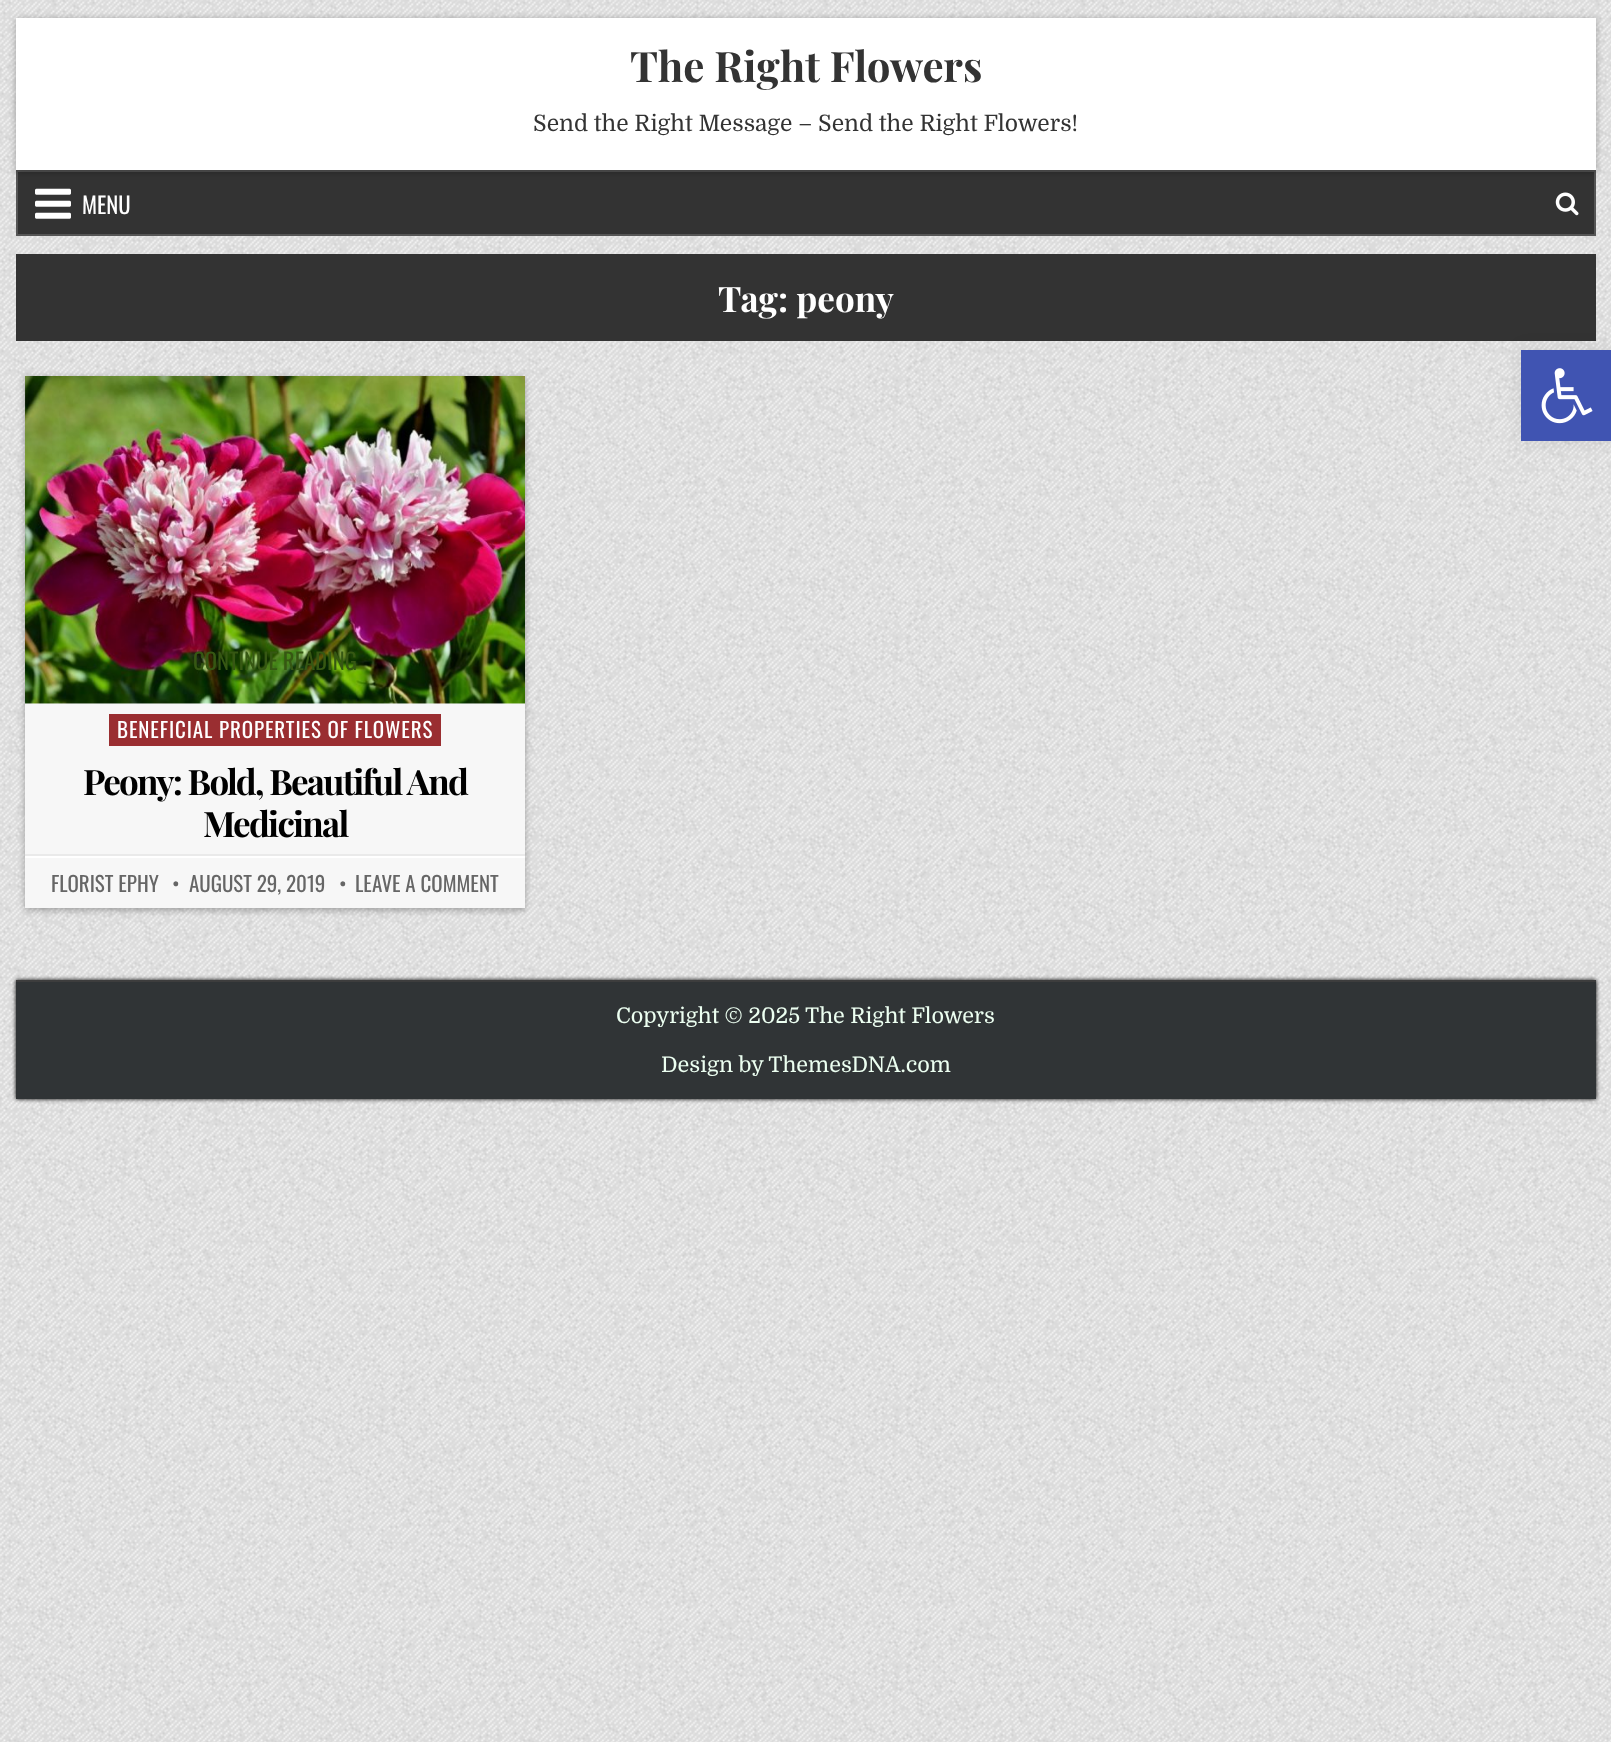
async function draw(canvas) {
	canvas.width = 1611;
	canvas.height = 1742;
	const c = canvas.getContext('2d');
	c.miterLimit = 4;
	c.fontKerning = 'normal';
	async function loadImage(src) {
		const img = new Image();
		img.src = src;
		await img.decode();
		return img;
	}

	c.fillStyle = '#fff';
	c.fillRect(0, 0, 1611, 1742);
	c.drawImage(await loadImage('img1.png'), 0, 0, 1611, 1742);
	c.fillStyle = '#333';
	c.beginPath();
	c.rect(17, 171, 1578, 64);
	c.fill();
	c.strokeStyle = '#555';
	c.lineWidth = 2;
	c.stroke();
	c.fillStyle = '#0000004d';
	c.filter = 'blur(3.5px)';
	c.beginPath();
	c.rect(16, 19, 1580, 153);
	c.fill();
	c.filter = 'none';
	c.fillStyle = '#fff';
	c.fillRect(16, 18, 1580, 152);
	c.font = 'bold 42px Playfair Display';
	c.fillStyle = '#333';
	c.fillText('The Right Flowers', 630, 82);
	c.font = '22.75px Domine';
	c.fillText('Send the Right Message – Send the Right Flowers!', 533, 131);
	c.drawImage(await loadImage('img2.png'), 35, 188, 36, 31);
	c.font = '22.75px Oswald';
	c.fillStyle = '#fff';
	c.fillText('MENU', 82, 214);
	c.drawImage(await loadImage('img3.png'), 1555, 192, 24, 24);
	c.fillStyle = '#333';
	c.fillRect(16, 254, 1580, 87);
	c.font = 'bold 35px Playfair Display';
	c.fillStyle = '#fff';
	c.fillText('Tag: peony', 718, 312);
	c.fillStyle = '#0000004d';
	c.filter = 'blur(3.5px)';
	c.beginPath();
	c.rect(25, 378, 500, 532);
	c.fill();
	c.filter = 'none';
	c.fillStyle = '#f7f7f7';
	c.fillRect(25, 703, 500, 205);
	c.drawImage(await loadImage('img4.png'), 25, 376, 500, 328);
	c.font = '22.75px Oswald';
	c.fillStyle = '#365713';
	c.fillText('CONTINUE READING', 193, 670);
	c.fillStyle = '#9a2e31';
	c.fillRect(109, 714, 332, 32);
	c.letterSpacing = '0.9px';
	c.font = '21px Oswald';
	c.fillStyle = '#fff';
	c.fillText('BENEFICIAL PROPERTIES OF FLOWERS', 117, 738);
	c.fillStyle = '#eaeaea';
	c.fillRect(25, 854, 500, 2);
	c.letterSpacing = '-1.75px';
	c.font = 'bold 35px Playfair Display';
	c.fillStyle = '#000';
	c.fillText('Peony: Bold, Beautiful And', 83, 795);
	c.fillText('Medicinal', 203, 837);
	c.fillStyle = '#fff';
	c.fillRect(25, 856, 500, 2);
	c.letterSpacing = '0px';
	c.font = '21px Oswald';
	c.fillStyle = '#666';
	for (const [text, x, y] of [
		['FLORIST EPHY', 51, 892],
		['•', 172, 892],
		['AUGUST 29, 2019', 189, 892],
		['•', 339, 892],
		['LEAVE A COMMENT', 355, 892],
	]) {
		c.fillText(text, x, y);
	}
	c.fillStyle = '#000';
	c.filter = 'blur(2px)';
	c.beginPath();
	c.rect(16, 980, 1580, 119);
	c.fill();
	c.filter = 'none';
	c.fillStyle = '#303436';
	c.fillRect(16, 982, 1580, 117);
	c.fillStyle = '#3d3d3d';
	c.fillRect(16, 980, 1580, 2);
	c.font = '21.6px Domine';
	c.fillStyle = '#ecfff1';
	c.fillText('Copyright © 2025 The Right Flowers', 616, 1023);
	c.fillText('Design by ThemesDNA.com', 661, 1072);
	c.fillStyle = '#0000001a';
	c.filter = 'blur(9px)';
	c.beginPath();
	c.rect(1521, 350, 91, 91);
	c.fill();
	c.filter = 'none';
	c.fillStyle = '#4054b2';
	c.fillRect(1521, 350, 90, 91);
	c.drawImage(await loadImage('img5.png'), 1541, 368, 52, 56);
}

draw(document.querySelector('canvas'));
